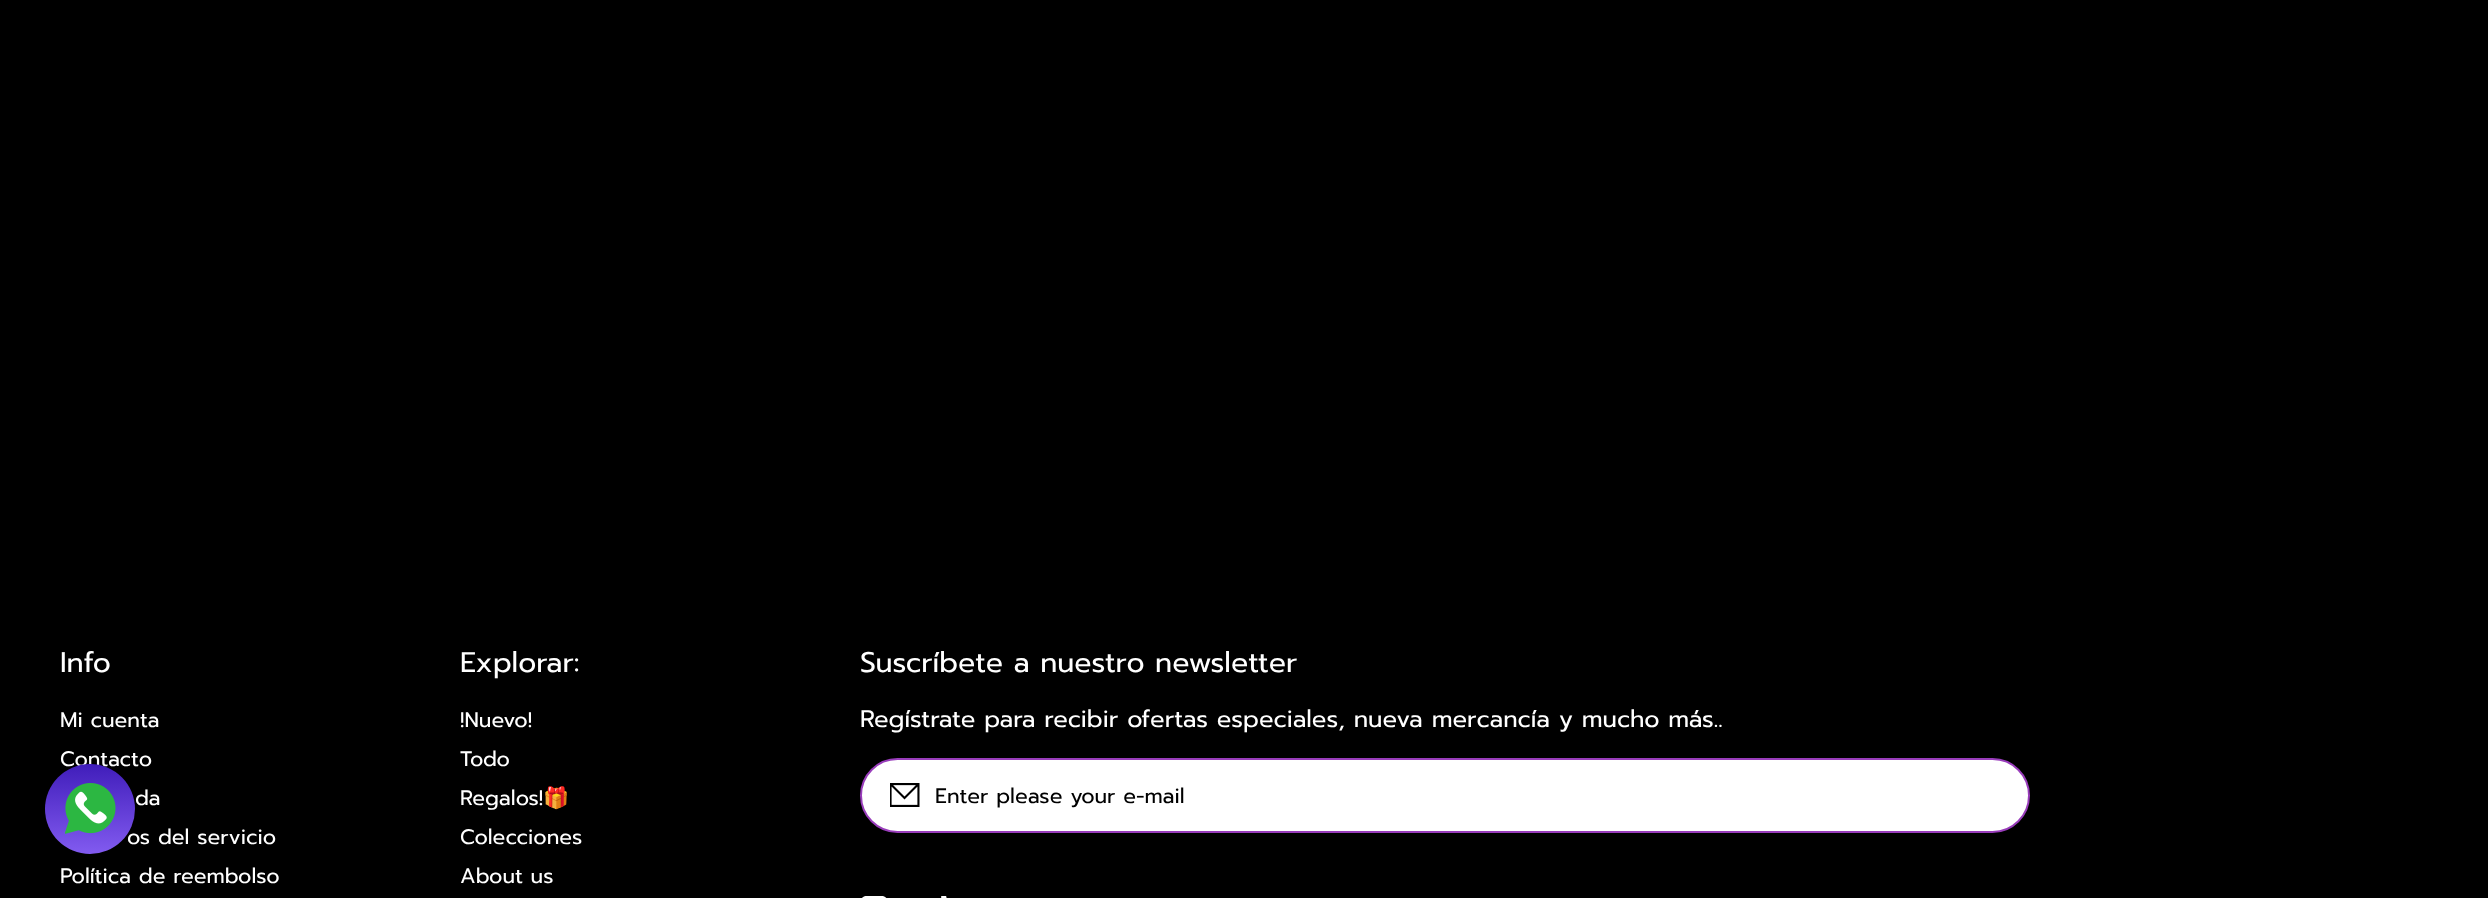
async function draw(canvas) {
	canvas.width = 2488;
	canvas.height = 898;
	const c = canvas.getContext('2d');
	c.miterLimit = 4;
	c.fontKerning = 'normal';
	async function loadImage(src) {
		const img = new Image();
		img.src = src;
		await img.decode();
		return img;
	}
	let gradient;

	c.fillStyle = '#000';
	c.fillRect(0, 0, 2488, 898);
	c.font = '28.4px Prompt';
	c.fillStyle = '#fff';
	c.fillText('Info', 60, 672);
	c.font = '21px Prompt';
	for (const [text, x, y] of [
		['Mi cuenta', 60, 727],
		['Contacto', 60, 766],
		['da', 135, 805],
		['os del servicio', 127, 844],
		['Política de reembolso', 60, 883],
	]) {
		c.fillText(text, x, y);
	}
	c.font = '28.4px Prompt';
	c.fillText('Explorar:', 460, 672);
	c.font = '21px Prompt';
	for (const [text, x, y] of [
		['!Nuevo!', 460, 727],
		['Todo', 460, 766],
		['Regalos!', 460, 805],
	]) {
		c.fillText(text, x, y);
	}
	c.font = '21px Noto Color Emoji';
	c.fillText('🎁', 543, 805);
	c.font = '21px Prompt';
	c.fillText('Colecciones', 460, 844);
	c.fillText('About us', 460, 883);
	c.font = '28.4px Prompt';
	c.fillText('Suscríbete a nuestro newsletter', 860, 672);
	c.font = '24px Prompt';
	c.fillText('Regístrate para recibir ofertas especiales, nueva mercancía y mucho más..', 860, 727);
	c.beginPath();
	c.roundRect(861, 759, 1168, 73, 36.5);
	c.fill();
	c.strokeStyle = '#993dbb';
	c.lineWidth = 2;
	c.stroke();
	c.drawImage(await loadImage('img1.png'), 890, 783, 30, 24);
	c.font = '21px Prompt';
	c.fillStyle = '#000';
	c.fillText('Enter please your e-mail', 935, 803);
	c.drawImage(await loadImage('img2.png'), 862, 896, 25, 2);
	c.drawImage(await loadImage('img3.png'), 941, 896, 6, 2);
	c.fillStyle = '#00000026';
	c.filter = 'blur(1.5px)';
	c.beginPath();
	c.roundRect(45, 765, 90, 90, 45);
	c.fill();
	c.filter = 'none';
	gradient = c.createLinearGradient(90, 764, 90, 854);
	gradient.addColorStop(0, '#401dba');
	gradient.addColorStop(1, '#825bf0');
	c.fillStyle = gradient;
	c.beginPath();
	c.arc(90, 809, 45, 0, 2 * Math.PI);
	c.fill();
	c.drawImage(await loadImage('img4.png'), 65, 783, 51, 51);
}

draw(document.querySelector('canvas'));
